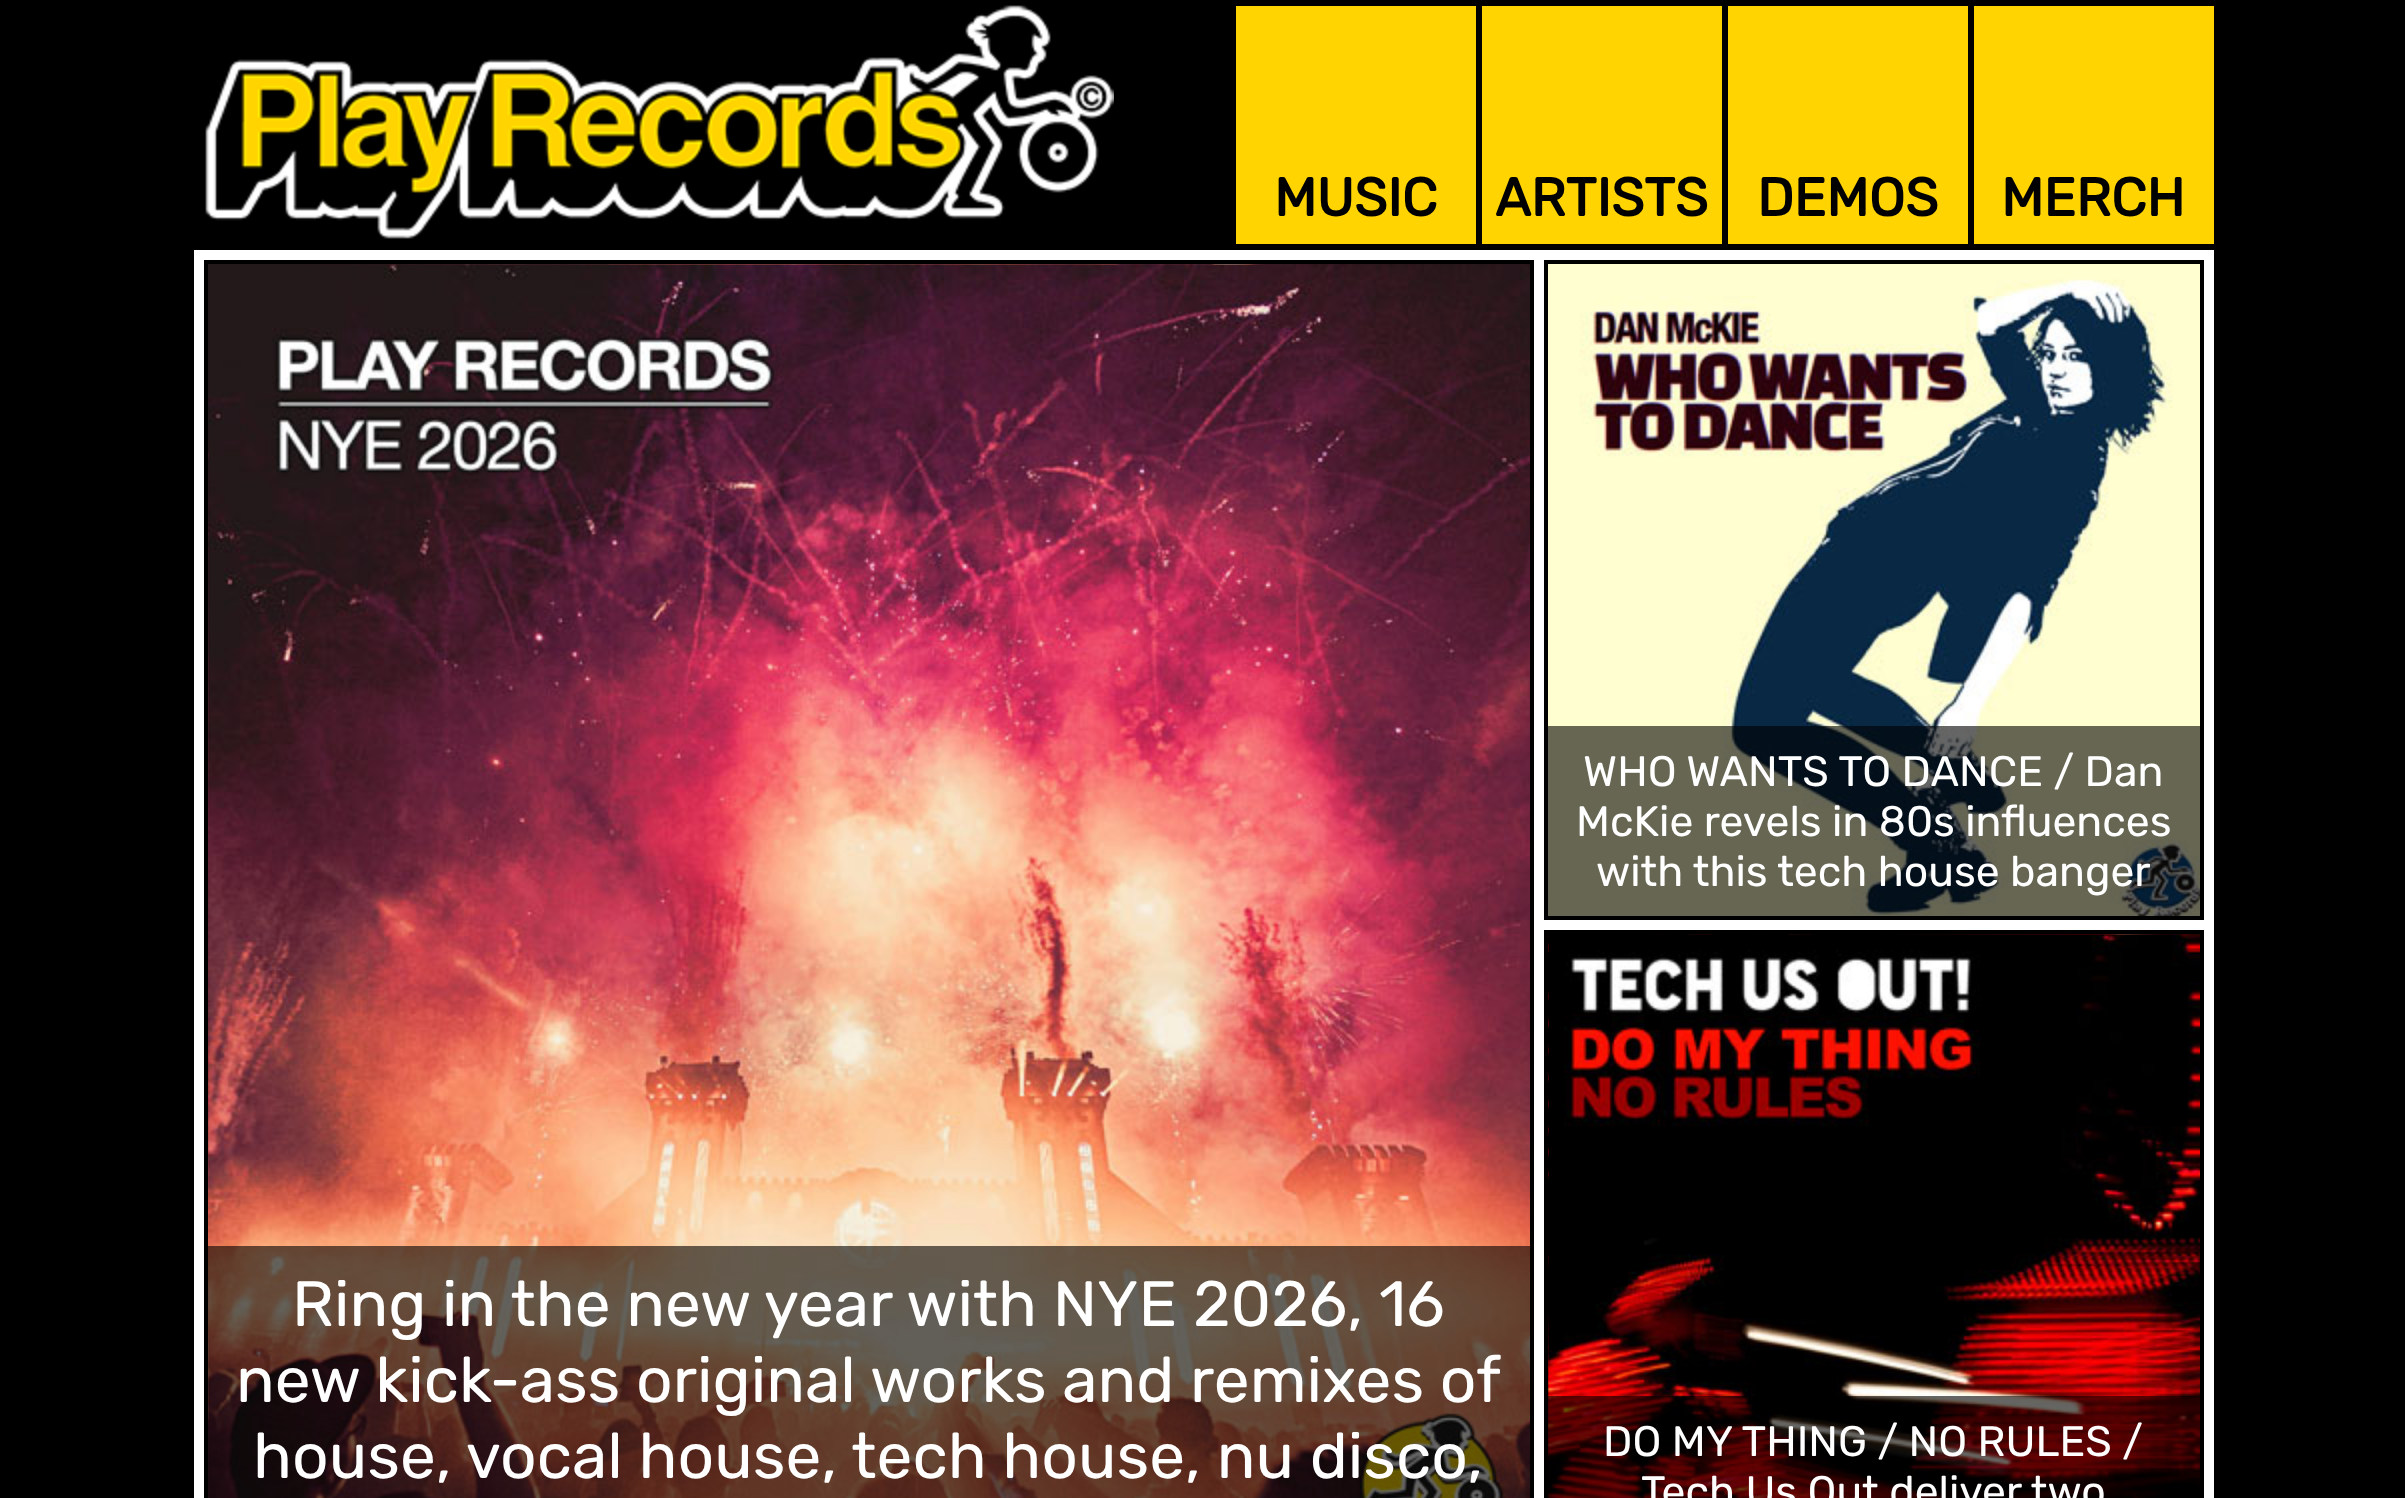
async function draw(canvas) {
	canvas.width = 2405;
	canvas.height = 1498;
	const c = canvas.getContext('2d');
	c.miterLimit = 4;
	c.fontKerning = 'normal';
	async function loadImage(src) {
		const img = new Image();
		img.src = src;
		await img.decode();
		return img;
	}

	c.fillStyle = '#000';
	c.fillRect(0, 0, 2405, 1498);
	c.drawImage(await loadImage('img1.png'), 205, 5, 909, 234);
	c.fillStyle = '#ffd400';
	c.fillRect(1236, 6, 240, 238);
	c.font = 'bold 53.5px Rubik';
	c.fillStyle = '#000';
	c.fillText('MUSIC', 1274, 216);
	c.fillStyle = '#ffd400';
	c.fillRect(1482, 6, 240, 238);
	c.fillStyle = '#000';
	c.fillText('ARTISTS', 1495, 216);
	c.fillStyle = '#ffd400';
	c.fillRect(1728, 6, 240, 238);
	c.fillStyle = '#000';
	c.fillText('DEMOS', 1757, 216);
	c.fillStyle = '#ffd400';
	c.fillRect(1974, 6, 240, 238);
	c.fillStyle = '#000';
	c.fillText('MERCH', 2001, 216);
	c.fillStyle = '#fff';
	c.fillRect(194, 250, 2020, 1248);
	c.drawImage(await loadImage('img2.png'), 1548, 264, 652, 652);
	c.strokeStyle = '#000';
	c.lineWidth = 4;
	c.strokeRect(1546, 262, 656, 656);
	c.fillStyle = '#00000099';
	c.fillRect(1548, 726, 652, 190);
	c.font = '300 42.7px Rubik';
	c.fillStyle = '#fff';
	for (const [text, x, y] of [
		['WHO WANTS TO DANCE / Dan', 1583, 786],
		['McKie revels in 80s influences', 1576, 836],
		['with this tech house banger', 1596, 886],
	]) {
		c.fillText(text, x, y);
	}
	c.drawImage(await loadImage('img3.png'), 208, 264, 1322, 1234);
	c.strokeRect(206, 262, 1326, 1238);
	c.fillStyle = '#00000099';
	c.fillRect(208, 1246, 1322, 252);
	c.font = '300 64px Rubik';
	c.fillStyle = '#fff';
	for (const [text, x, y] of [
		['Ring in the new year with NYE 2026, 16', 292, 1326],
		['new kick-ass original works and remixes of', 236, 1402],
		['house, vocal house, tech house, nu disco,', 253, 1478],
	]) {
		c.fillText(text, x, y);
	}
	c.drawImage(await loadImage('img4.png'), 1548, 934, 652, 564);
	c.strokeRect(1546, 932, 656, 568);
	c.fillStyle = '#00000099';
	c.fillRect(1548, 1396, 652, 102);
	c.font = '300 42.7px Rubik';
	c.fillStyle = '#fff';
	c.fillText('DO MY THING / NO RULES /', 1603, 1456);
	c.fillText('Tech Us Out deliver two', 1641, 1506);
}

draw(document.querySelector('canvas'));
